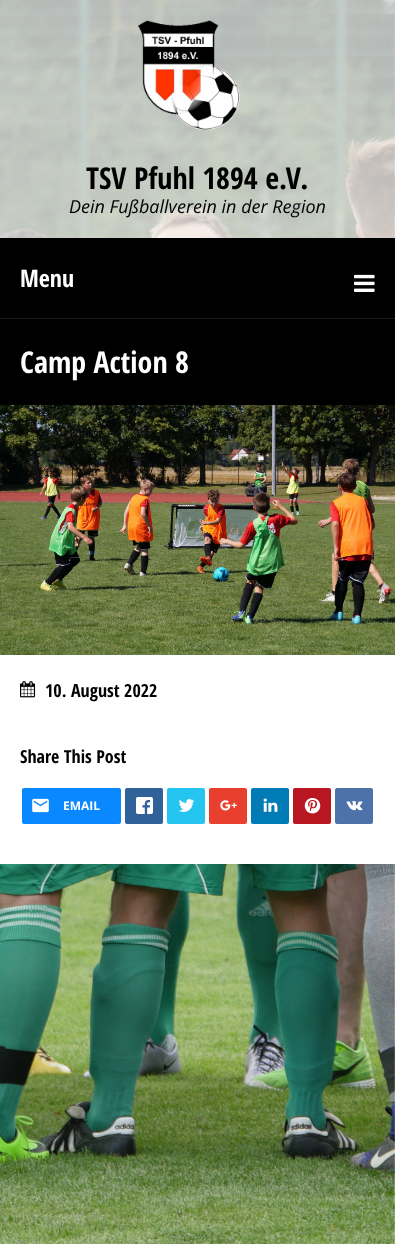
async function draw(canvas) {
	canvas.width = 395;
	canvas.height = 1244;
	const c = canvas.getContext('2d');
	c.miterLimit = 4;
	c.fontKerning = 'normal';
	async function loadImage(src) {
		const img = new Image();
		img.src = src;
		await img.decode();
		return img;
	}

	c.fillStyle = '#fff';
	c.fillRect(0, 0, 395, 1244);
	c.drawImage(await loadImage('img1.png'), 0, 0, 395, 1244);
	c.fillStyle = '#ffffffb3';
	c.fillRect(0, 0, 395, 238);
	c.drawImage(await loadImage('img2.png'), 138, 20, 102, 110);
	c.font = 'bold 30px Open Sans Condensed';
	c.fillStyle = '#000';
	c.fillText('TSV Pfuhl 1894 e.V.', 86, 189);
	c.font = 'italic 18px Open Sans';
	c.fillText('Dein Fußballverein in der Region', 69, 213);
	c.fillRect(0, 238, 395, 80);
	c.font = 'bold 24px Open Sans Condensed';
	c.fillStyle = '#fff';
	c.fillText('Menu', 20, 287);
	c.drawImage(await loadImage('img3.png'), 354, 274, 21, 18);
	c.fillStyle = '#000';
	c.fillRect(0, 319, 395, 86);
	c.fillStyle = '#1a1a1a';
	c.fillRect(0, 318, 395, 1);
	c.font = 'bold 30px Open Sans Condensed';
	c.fillStyle = '#fff';
	c.fillText('Camp Action 8', 20, 373);
	c.drawImage(await loadImage('img4.png'), 0, 405, 395, 250);
	c.fillRect(0, 655, 395, 209);
	c.drawImage(await loadImage('img5.png'), 20, 681, 16, 17);
	c.font = 'bold 18px Open Sans Condensed';
	c.fillStyle = '#000';
	c.fillText('10. August 2022', 45, 697);
	c.fillText('Share This Post', 20, 763);
	c.fillStyle = '#0a88ff';
	c.beginPath();
	c.roundRect(22, 788, 99, 36, 2);
	c.fill();
	c.drawImage(await loadImage('img6.png'), 32, 798, 17, 15);
	c.font = 'bold 12px Open Sans';
	c.fillStyle = '#fff';
	c.fillText('EMAIL', 63, 810);
	c.fillStyle = '#306199';
	c.beginPath();
	c.roundRect(125, 788, 38, 36, 2);
	c.fill();
	c.drawImage(await loadImage('img7.png'), 136, 797, 17, 17);
	c.fillStyle = '#26c4f1';
	c.beginPath();
	c.roundRect(167, 788, 38, 36, 2);
	c.fill();
	c.drawImage(await loadImage('img8.png'), 178, 799, 17, 13);
	c.fillStyle = '#e93f2e';
	c.beginPath();
	c.roundRect(209, 788, 38, 36, 2);
	c.fill();
	c.drawImage(await loadImage('img9.png'), 220, 800, 17, 11);
	c.fillStyle = '#007bb6';
	c.beginPath();
	c.roundRect(251, 788, 38, 36, 2);
	c.fill();
	c.drawImage(await loadImage('img10.png'), 263, 798, 15, 14);
	c.fillStyle = '#b81621';
	c.beginPath();
	c.roundRect(293, 788, 38, 36, 2);
	c.fill();
	c.drawImage(await loadImage('img11.png'), 304, 798, 17, 16);
	c.fillStyle = '#4d71a9';
	c.beginPath();
	c.roundRect(335, 788, 38, 36, 2);
	c.fill();
	c.drawImage(await loadImage('img12.png'), 346, 801, 17, 10);
}

draw(document.querySelector('canvas'));
